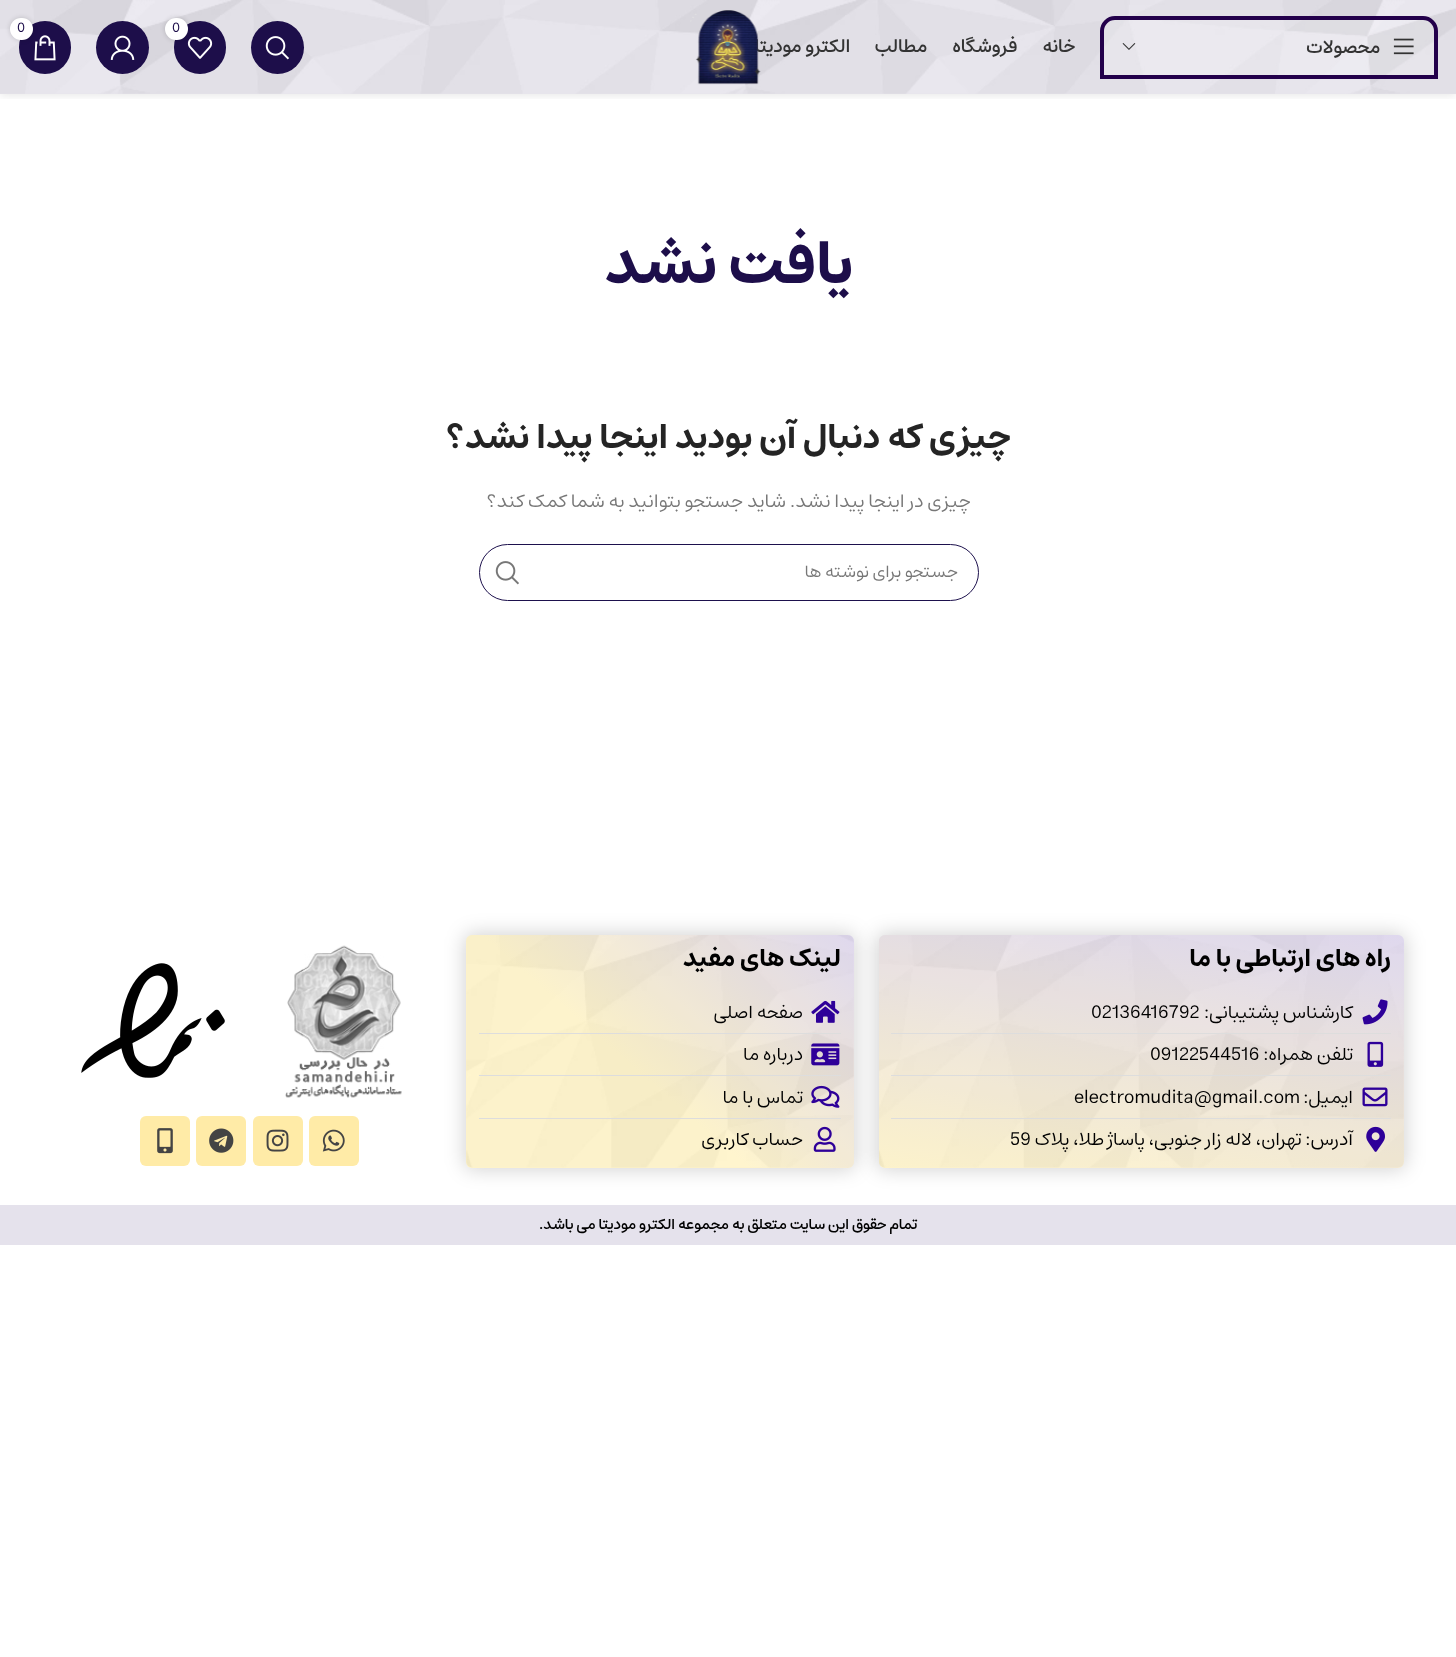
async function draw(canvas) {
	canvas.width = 1456;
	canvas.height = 1657;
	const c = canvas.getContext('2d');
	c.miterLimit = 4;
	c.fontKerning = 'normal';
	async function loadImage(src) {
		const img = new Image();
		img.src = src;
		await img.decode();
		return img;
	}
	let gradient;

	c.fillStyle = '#fff';
	c.fillRect(0, 0, 1456, 1657);
	c.save();
	c.beginPath();
	c.rect(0, 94, 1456, 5);
	c.clip();
	c.fillStyle = '#0000001a';
	c.filter = 'blur(5px)';
	c.beginPath();
	c.rect(0, 1, 1456, 94);
	c.fill();
	c.filter = 'none';
	c.restore();
	c.fillStyle = '#e5e2ece3';
	c.fillRect(0, 0, 1456, 94);
	c.drawImage(await loadImage('img1.png'), 0, 0, 1456, 94);
	c.direction = 'rtl';
	c.font = 'bold 18.75px "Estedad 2"';
	c.fillStyle = '#333';
	c.fillText('الکترو مودیتا', 850, 52);
	c.drawImage(await loadImage('img2.png'), 690, 10, 71, 75);
	c.fillStyle = '#1d0e4a';
	c.beginPath();
	c.arc(277.5, 47.5, 26.5, 0, 2 * Math.PI);
	c.fill();
	c.drawImage(await loadImage('img3.png'), 265, 36, 24, 24);
	c.beginPath();
	c.roundRect(174, 21, 52, 53, 26);
	c.fill();
	c.drawImage(await loadImage('img4.png'), 187, 36, 26, 23);
	c.fillStyle = '#0000002b';
	c.filter = 'blur(2.5px)';
	c.beginPath();
	c.roundRect(165, 18, 23, 22, 11);
	c.fill();
	c.filter = 'none';
	c.fillStyle = '#fff';
	c.beginPath();
	c.roundRect(165, 18, 23, 22, 11);
	c.fill();
	c.direction = 'ltr';
	c.font = '14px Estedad';
	c.fillStyle = '#1d0e4a';
	c.fillText('0', 172, 32);
	c.beginPath();
	c.arc(122.5, 47.5, 26.5, 0, 2 * Math.PI);
	c.fill();
	c.drawImage(await loadImage('img5.png'), 110, 35, 25, 25);
	c.beginPath();
	c.roundRect(19, 21, 52, 53, 26);
	c.fill();
	c.drawImage(await loadImage('img6.png'), 34, 35, 22, 26);
	c.fillStyle = '#0000002b';
	c.filter = 'blur(2.5px)';
	c.beginPath();
	c.roundRect(10, 18, 23, 22, 11);
	c.fill();
	c.filter = 'none';
	c.fillStyle = '#fff';
	c.beginPath();
	c.roundRect(10, 18, 23, 22, 11);
	c.fill();
	c.fillStyle = '#1d0e4a';
	c.fillText('0', 17, 32);
	c.fillStyle = '#ffffff2b';
	c.beginPath();
	c.roundRect(1102, 18, 334, 59, [13, 13, 0, 0]);
	c.fill();
	c.strokeStyle = '#23004b';
	c.lineWidth = 4;
	c.stroke();
	c.drawImage(await loadImage('img7.png'), 1393, 38, 21, 17);
	c.direction = 'rtl';
	c.font = 'bold 18.75px "Estedad 2"';
	c.fillStyle = '#333';
	c.fillText('محصولات', 1380, 53);
	c.drawImage(await loadImage('img8.png'), 1122, 43, 14, 7);
	for (const [text, x, y] of [
		['خانه', 1075, 52],
		['فروشگاه', 1017, 52],
		['مطالب', 927, 52],
	]) {
		c.fillText(text, x, y);
	}
	c.font = 'bold 61px Estedad';
	c.fillStyle = '#1d0e4a';
	c.fillText('یافت نشد', 853, 283);
	c.font = 'bold 35px Estedad';
	c.fillStyle = '#242424';
	c.fillText('چیزی که دنبال آن بودید اینجا پیدا نشد؟', 1011, 448);
	c.font = '19.25px Estedad';
	c.fillStyle = '#777';
	c.fillText('چیزی در اینجا پیدا نشد. شاید جستجو بتوانید به شما کمک کند؟', 971, 507);
	c.beginPath();
	c.roundRect(479.5, 544.5, 499, 56, 28);
	c.strokeStyle = '#1d114d';
	c.lineWidth = 1;
	c.stroke();
	c.font = '17.5px Estedad';
	c.fillText('جستجو برای نوشته ها', 958, 577);
	c.drawImage(await loadImage('img9.png'), 495, 561, 24, 24);
	c.fillStyle = '#0000002b';
	c.filter = 'blur(9.5px)';
	c.beginPath();
	c.roundRect(876, 933, 530, 237, 9);
	c.fill();
	c.filter = 'none';
	gradient = c.createLinearGradient(1169, 894, 1113, 1209);
	gradient.addColorStop(0, '#dfd8f0');
	gradient.addColorStop(1, '#fff4c9');
	c.fillStyle = gradient;
	c.beginPath();
	c.roundRect(879, 935, 525, 233, 6);
	c.fill();
	c.drawImage(await loadImage('img10.png'), 879, 935, 525, 233);
	c.font = 'bold 25px Estedad';
	c.fillStyle = '#000';
	c.fillText('راه های ارتباطی با ما', 1391, 966);
	c.drawImage(await loadImage('img11.png'), 1362, 999, 26, 26);
	c.font = '18.75px Estedad';
	c.fillText('کارشناس پشتیبانی:', 1353, 1018);
	c.direction = 'ltr';
	c.fillText('02136416792', 1091, 1018);
	c.fillStyle = '#ddd';
	c.fillRect(891, 1033, 500, 1);
	c.drawImage(await loadImage('img12.png'), 1367, 1041, 17, 26);
	c.direction = 'rtl';
	c.fillStyle = '#000';
	c.fillText('تلفن همراه:', 1353, 1060);
	c.direction = 'ltr';
	c.fillText('09122544516', 1150, 1060);
	c.fillStyle = '#ddd';
	c.fillRect(891, 1075, 500, 1);
	c.drawImage(await loadImage('img13.png'), 1362, 1087, 26, 20);
	c.direction = 'rtl';
	c.fillStyle = '#000';
	c.fillText('ایمیل:', 1353, 1103);
	c.direction = 'ltr';
	c.fillText('electromudita@gmail.com', 1074, 1103);
	c.fillStyle = '#ddd';
	c.fillRect(891, 1118, 500, 1);
	c.drawImage(await loadImage('img14.png'), 1366, 1126, 19, 26);
	c.direction = 'rtl';
	c.fillStyle = '#000';
	c.fillText('آدرس: تهران، لاله زار جنوبی، پاساژ طلا، پلاک', 1353, 1145);
	c.direction = 'ltr';
	c.fillText('59', 1010, 1145);
	c.fillStyle = '#0000002b';
	c.filter = 'blur(9.5px)';
	c.beginPath();
	c.roundRect(464, 933, 392, 237, 9);
	c.fill();
	c.filter = 'none';
	gradient = c.createLinearGradient(801, 889, 519, 1213);
	gradient.addColorStop(0, '#dfd8f0');
	gradient.addColorStop(0.57, '#fff4c9');
	c.fillStyle = gradient;
	c.beginPath();
	c.roundRect(466, 935, 388, 233, 6);
	c.fill();
	c.drawImage(await loadImage('img15.png'), 466, 935, 388, 233);
	c.direction = 'rtl';
	c.font = 'bold 25px Estedad';
	c.fillStyle = '#000';
	c.fillText('لینک های مفید', 841, 966);
	c.drawImage(await loadImage('img16.png'), 811, 1000, 29, 23);
	c.font = '18.75px Estedad';
	c.fillText('صفحه اصلی', 803, 1018);
	c.fillStyle = '#ddd';
	c.fillRect(479, 1033, 362, 1);
	c.drawImage(await loadImage('img17.png'), 811, 1043, 29, 23);
	c.fillStyle = '#000';
	c.fillText('درباره ما', 803, 1060);
	c.fillStyle = '#ddd';
	c.fillRect(479, 1075, 362, 1);
	c.drawImage(await loadImage('img18.png'), 811, 1085, 29, 23);
	c.fillStyle = '#000';
	c.fillText('تماس با ما', 803, 1103);
	c.fillStyle = '#ddd';
	c.fillRect(479, 1118, 362, 1);
	c.drawImage(await loadImage('img19.png'), 813, 1126, 23, 26);
	c.fillStyle = '#000';
	c.fillText('حساب کاربری', 803, 1145);
	c.drawImage(await loadImage('img20.png'), 285, 945, 117, 153);
	c.drawImage(await loadImage('img21.png'), 81, 963, 144, 115);
	c.fillStyle = '#ffeba7';
	c.beginPath();
	c.roundRect(309, 1116, 50, 50, 6);
	c.fill();
	c.drawImage(await loadImage('img22.png'), 322, 1129, 23, 23);
	c.beginPath();
	c.roundRect(253, 1116, 50, 50, 6);
	c.fill();
	c.drawImage(await loadImage('img23.png'), 266, 1129, 23, 23);
	c.beginPath();
	c.roundRect(196, 1116, 50, 50, 6);
	c.fill();
	c.drawImage(await loadImage('img24.png'), 209, 1128, 25, 25);
	c.beginPath();
	c.roundRect(140, 1116, 50, 50, 6);
	c.fill();
	c.drawImage(await loadImage('img25.png'), 157, 1128, 16, 26);
	c.fillStyle = '#e5e2ec';
	c.fillRect(0, 1205, 1456, 40);
	c.font = 'bold 15px "Estedad 2"';
	c.fillStyle = '#000';
	c.fillText('تمام حقوق این سایت متعلق به مجموعه الکترو مودیتا می باشد.', 917, 1229);
}

draw(document.querySelector('canvas'));
